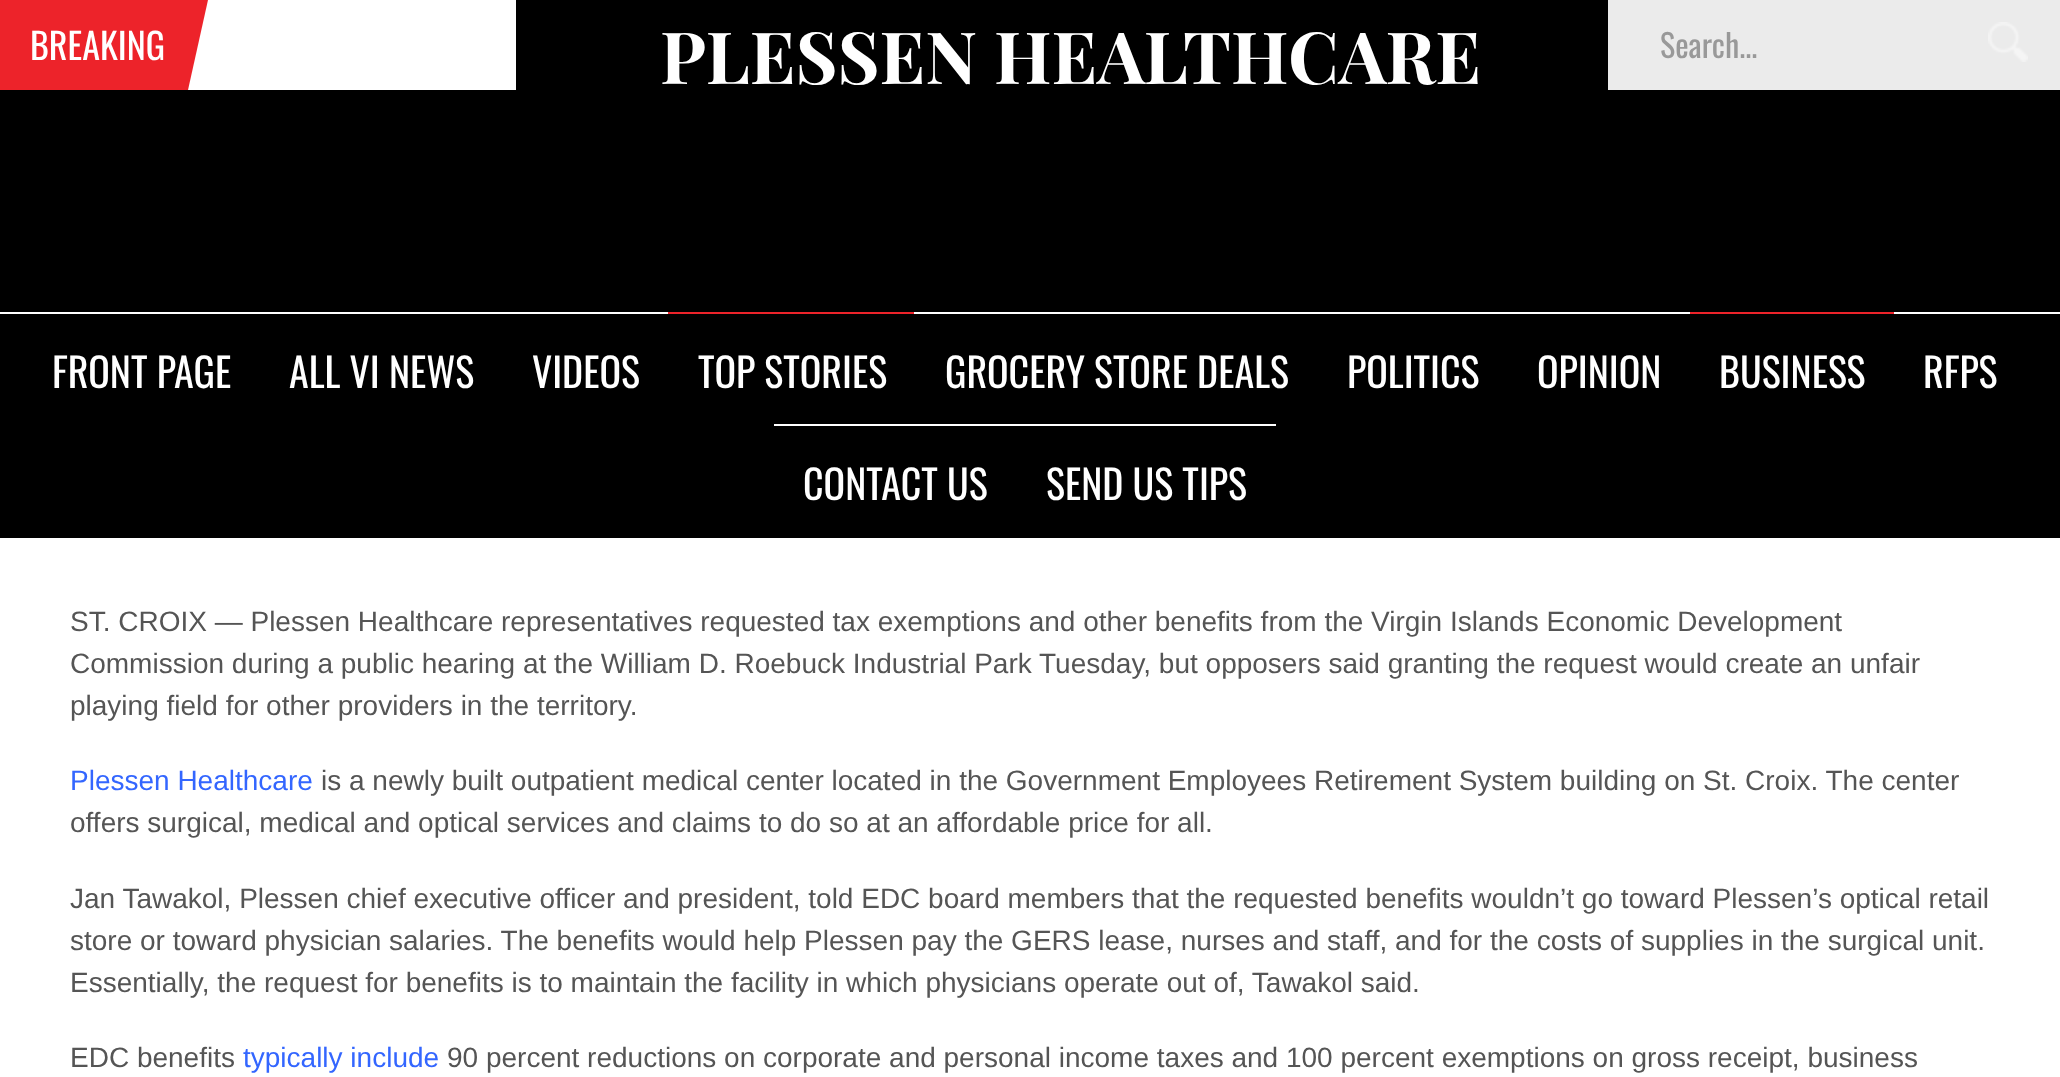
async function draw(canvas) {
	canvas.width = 2060;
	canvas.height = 1077;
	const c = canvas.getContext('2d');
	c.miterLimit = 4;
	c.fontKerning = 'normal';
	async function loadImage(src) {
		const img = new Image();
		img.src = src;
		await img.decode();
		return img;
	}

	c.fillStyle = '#fff';
	c.fillRect(0, 0, 2060, 1077);
	c.fillStyle = '#ed232a';
	c.fillRect(0, 0, 188, 90);
	c.font = '36px Oswald';
	c.fillStyle = '#fff';
	c.fillText('BREAKING', 30, 60);
	c.fillStyle = '#ed232a';
	c.beginPath();
	c.moveTo(188, 90);
	c.lineTo(188, 0);
	c.lineTo(208, 0);
	c.closePath();
	c.fill();
	c.fillStyle = '#ebebeb';
	c.fillRect(1608, 0, 452, 90);
	c.font = '32px Oswald';
	c.fillStyle = '#999';
	c.fillText('Search...', 1660, 58);
	c.drawImage(await loadImage('img1.png'), 1988, 22, 40, 40);
	c.fillStyle = '#000';
	c.fillRect(516, 0, 1092, 90);
	c.font = 'bold 72px Playfair Display';
	c.fillStyle = '#fff';
	c.fillText('PLESSEN HEALTHCARE', 660, 84);
	c.fillStyle = '#000';
	c.fillRect(0, 90, 2060, 222);
	c.fillRect(0, 314, 2060, 224);
	c.font = '40px Oswald';
	c.fillStyle = '#fff';
	for (const [text, x, y] of [
		['FRONT PAGE', 52, 388],
		['ALL VI NEWS', 289, 388],
		['VIDEOS', 532, 388],
	]) {
		c.fillText(text, x, y);
	}
	c.fillStyle = '#ed232a';
	c.fillRect(668, 312, 250, 2);
	c.fillStyle = '#fff';
	c.fillText('TOP STORIES', 698, 388);
	c.fillRect(914, 312, 4, 2);
	for (const [text, x, y] of [
		['GROCERY STORE DEALS', 945, 388],
		['POLITICS', 1347, 388],
		['OPINION', 1537, 388],
	]) {
		c.fillText(text, x, y);
	}
	c.fillStyle = '#ed232a';
	c.fillRect(1690, 312, 206, 2);
	c.fillStyle = '#fff';
	c.fillText('BUSINESS', 1719, 388);
	c.fillRect(1894, 312, 2, 2);
	c.fillText('RFPS', 1923, 388);
	c.fillRect(774, 424, 502, 2);
	c.fillText('CONTACT US', 803, 500);
	c.fillText('SEND US TIPS', 1046, 500);
	c.font = '28px Liberation Sans';
	c.fillStyle = '#555';
	for (const [text, x, y] of [
		['ST. CROIX — Plessen Healthcare representatives requested tax exemptions and other benefits from the Virgin Islands Economic Development', 70, 631],
		['Commission during a public hearing at the William D. Roebuck Industrial Park Tuesday, but opposers said granting the request would create an unfair', 70, 673],
		['playing field for other providers in the territory.', 70, 715],
	]) {
		c.fillText(text, x, y);
	}
	c.fillStyle = '#36f';
	c.fillText('Plessen Healthcare', 70, 790);
	c.fillStyle = '#555';
	for (const [text, x, y] of [
		['is a newly built outpatient medical center located in the Government Employees Retirement System building on St. Croix. The center', 321, 790],
		['offers surgical, medical and optical services and claims to do so at an affordable price for all.', 70, 832],
		['Jan Tawakol, Plessen chief executive officer and president, told EDC board members that the requested benefits wouldn’t go toward Plessen’s optical retail', 70, 908],
		['store or toward physician salaries. The benefits would help Plessen pay the GERS lease, nurses and staff, and for the costs of supplies in the surgical unit.', 70, 950],
		['Essentially, the request for benefits is to maintain the facility in which physicians operate out of, Tawakol said.', 70, 992],
		['EDC benefits', 70, 1067],
	]) {
		c.fillText(text, x, y);
	}
	c.fillStyle = '#36f';
	c.fillText('typically include', 243, 1067);
	c.fillStyle = '#555';
	c.fillText('90 percent reductions on corporate and personal income taxes and 100 percent exemptions on gross receipt, business', 447, 1067);
}

draw(document.querySelector('canvas'));
